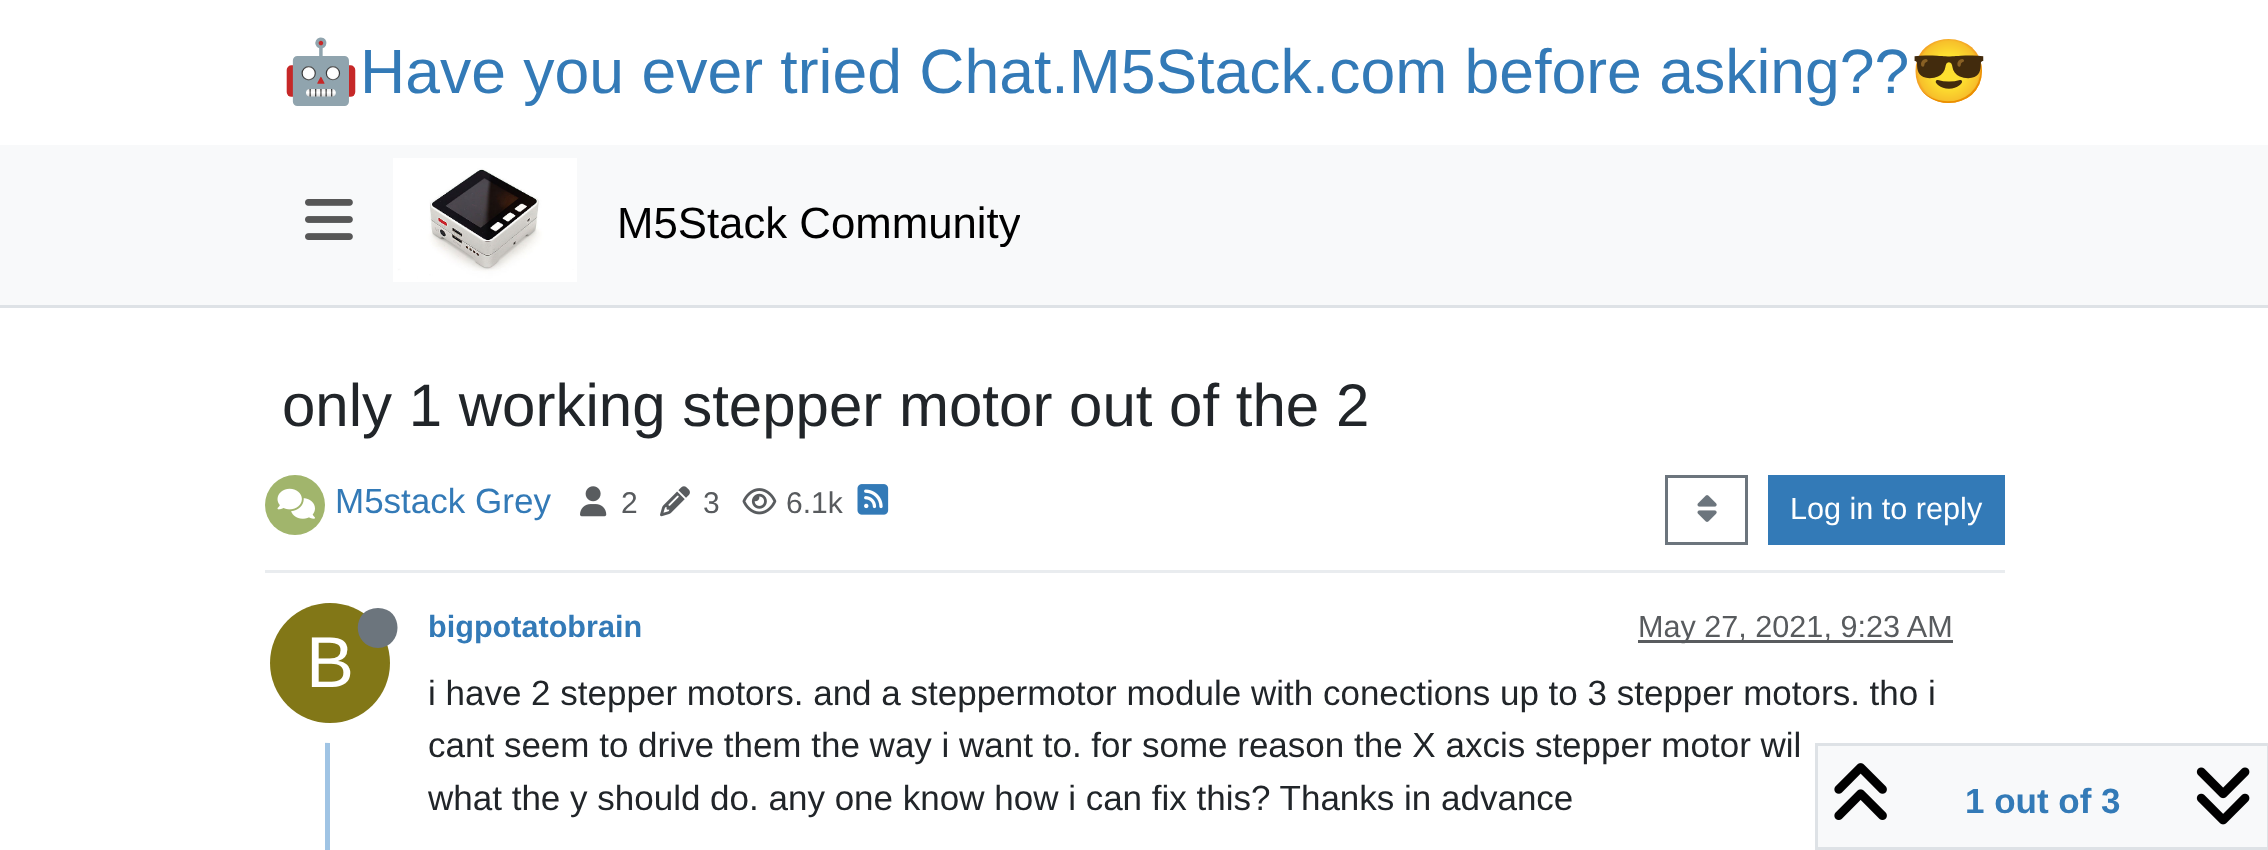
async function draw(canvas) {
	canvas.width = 2268;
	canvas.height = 850;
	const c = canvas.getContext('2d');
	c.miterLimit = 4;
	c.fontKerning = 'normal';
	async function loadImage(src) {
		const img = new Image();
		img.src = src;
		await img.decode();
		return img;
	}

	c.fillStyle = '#fff';
	c.fillRect(0, 0, 2268, 850);
	c.font = '62.5px Noto Color Emoji';
	c.fillStyle = '#337ab7';
	c.fillText('🤖', 282, 93);
	c.font = '62.5px Liberation Sans';
	c.fillText('Have you ever tried Chat.M5Stack.com before asking??', 360, 93);
	c.font = '62.5px Noto Color Emoji';
	c.fillText('😎', 1910, 93);
	c.fillStyle = '#f8f9fa';
	c.fillRect(0, 145, 2268, 160);
	c.fillStyle = '#dee2e6';
	c.fillRect(0, 305, 2268, 3);
	c.drawImage(await loadImage('img1.png'), 305, 199, 48, 41);
	c.drawImage(await loadImage('img2.png'), 393, 158, 184, 124);
	c.save();
	c.beginPath();
	c.rect(618, 178, 402, 92);
	c.clip();
	c.font = '43.75px Liberation Sans';
	c.fillStyle = '#000';
	c.fillText('M5Stack Community', 617, 238);
	c.restore();
	c.font = '60px Liberation Sans';
	c.fillStyle = '#212529';
	c.fillText('only 1 working stepper motor out of the 2', 282, 426);
	c.fillStyle = '#e9ecef';
	c.fillRect(265, 570, 1740, 3);
	c.fillStyle = '#a1b56c';
	c.beginPath();
	c.arc(295, 505, 30, 0, 2 * Math.PI);
	c.fill();
	c.drawImage(await loadImage('img3.png'), 277, 488, 38, 31);
	c.font = '35px Liberation Sans';
	c.fillStyle = '#337ab7';
	c.fillText('M5stack Grey', 335, 513);
	c.drawImage(await loadImage('img4.png'), 580, 486, 27, 31);
	c.font = '30px Liberation Sans';
	c.fillStyle = '#585b5e';
	c.fillText('2', 621, 513);
	c.drawImage(await loadImage('img5.png'), 660, 486, 30, 31);
	c.fillText('3', 703, 513);
	c.drawImage(await loadImage('img6.png'), 742, 488, 35, 27);
	c.fillText('6.1k', 786, 513);
	c.drawImage(await loadImage('img7.png'), 857, 484, 32, 31);
	c.strokeStyle = '#6c757d';
	c.lineWidth = 3;
	c.strokeRect(1666.5, 476.5, 80, 67);
	c.drawImage(await loadImage('img8.png'), 1697, 495, 20, 27);
	c.fillStyle = '#337ab7';
	c.fillRect(1768, 475, 237, 70);
	c.font = '30.6px Liberation Sans';
	c.fillStyle = '#fff';
	c.fillText('Log in to reply', 1790, 519);
	c.fillStyle = '#a0c4e4';
	c.fillRect(325, 598, 5, 252);
	c.font = 'bold 30.6px Liberation Sans';
	c.fillStyle = '#337ab7';
	c.fillText('bigpotatobrain', 428, 637);
	c.fillStyle = '#595c5f';
	c.fillRect(1638, 640, 315, 3);
	c.font = '30.6px Liberation Sans';
	c.fillStyle = '#585b5e';
	c.fillText('May 27, 2021, 9:23 AM', 1638, 637);
	c.beginPath();
	c.arc(330, 663, 70, 0, 2 * Math.PI);
	c.strokeStyle = '#fff';
	c.lineWidth = 20;
	c.stroke();
	c.fillStyle = '#827717';
	c.beginPath();
	c.arc(330, 663, 60, 0, 2 * Math.PI);
	c.fill();
	c.fillStyle = '#6c757d';
	c.beginPath();
	c.moveTo(378, 648);
	c.bezierCurveTo(404, 647, 404, 608, 378, 608);
	c.bezierCurveTo(351, 608, 351, 647, 378, 648);
	c.closePath();
	c.fill();
	c.font = '72px Liberation Sans';
	c.fillStyle = '#fff';
	c.fillText('B', 306, 687);
	c.font = '35px Liberation Sans';
	c.fillStyle = '#212529';
	for (const [text, x, y] of [
		['i have 2 stepper motors. and a steppermotor module with conections up to 3 stepper motors. tho i', 428, 705],
		['cant seem to drive them the way i want to. for some reason the X axcis stepper motor wil', 428, 757],
		['what the y should do. any one know how i can fix this? Thanks in advance', 428, 810],
	]) {
		c.fillText(text, x, y);
	}
	c.fillStyle = '#f8f9fa';
	c.beginPath();
	c.rect(1816.5, 744.5, 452, 104);
	c.fill();
	c.strokeStyle = '#dee2e6';
	c.lineWidth = 3;
	c.stroke();
	c.drawImage(await loadImage('img9.png'), 1834, 763, 53, 57);
	c.font = 'bold 35px Liberation Sans';
	c.fillStyle = '#337ab7';
	c.fillText('1 out of 3', 1965, 813);
	c.drawImage(await loadImage('img10.png'), 2196, 767, 54, 58);
}

draw(document.querySelector('canvas'));
